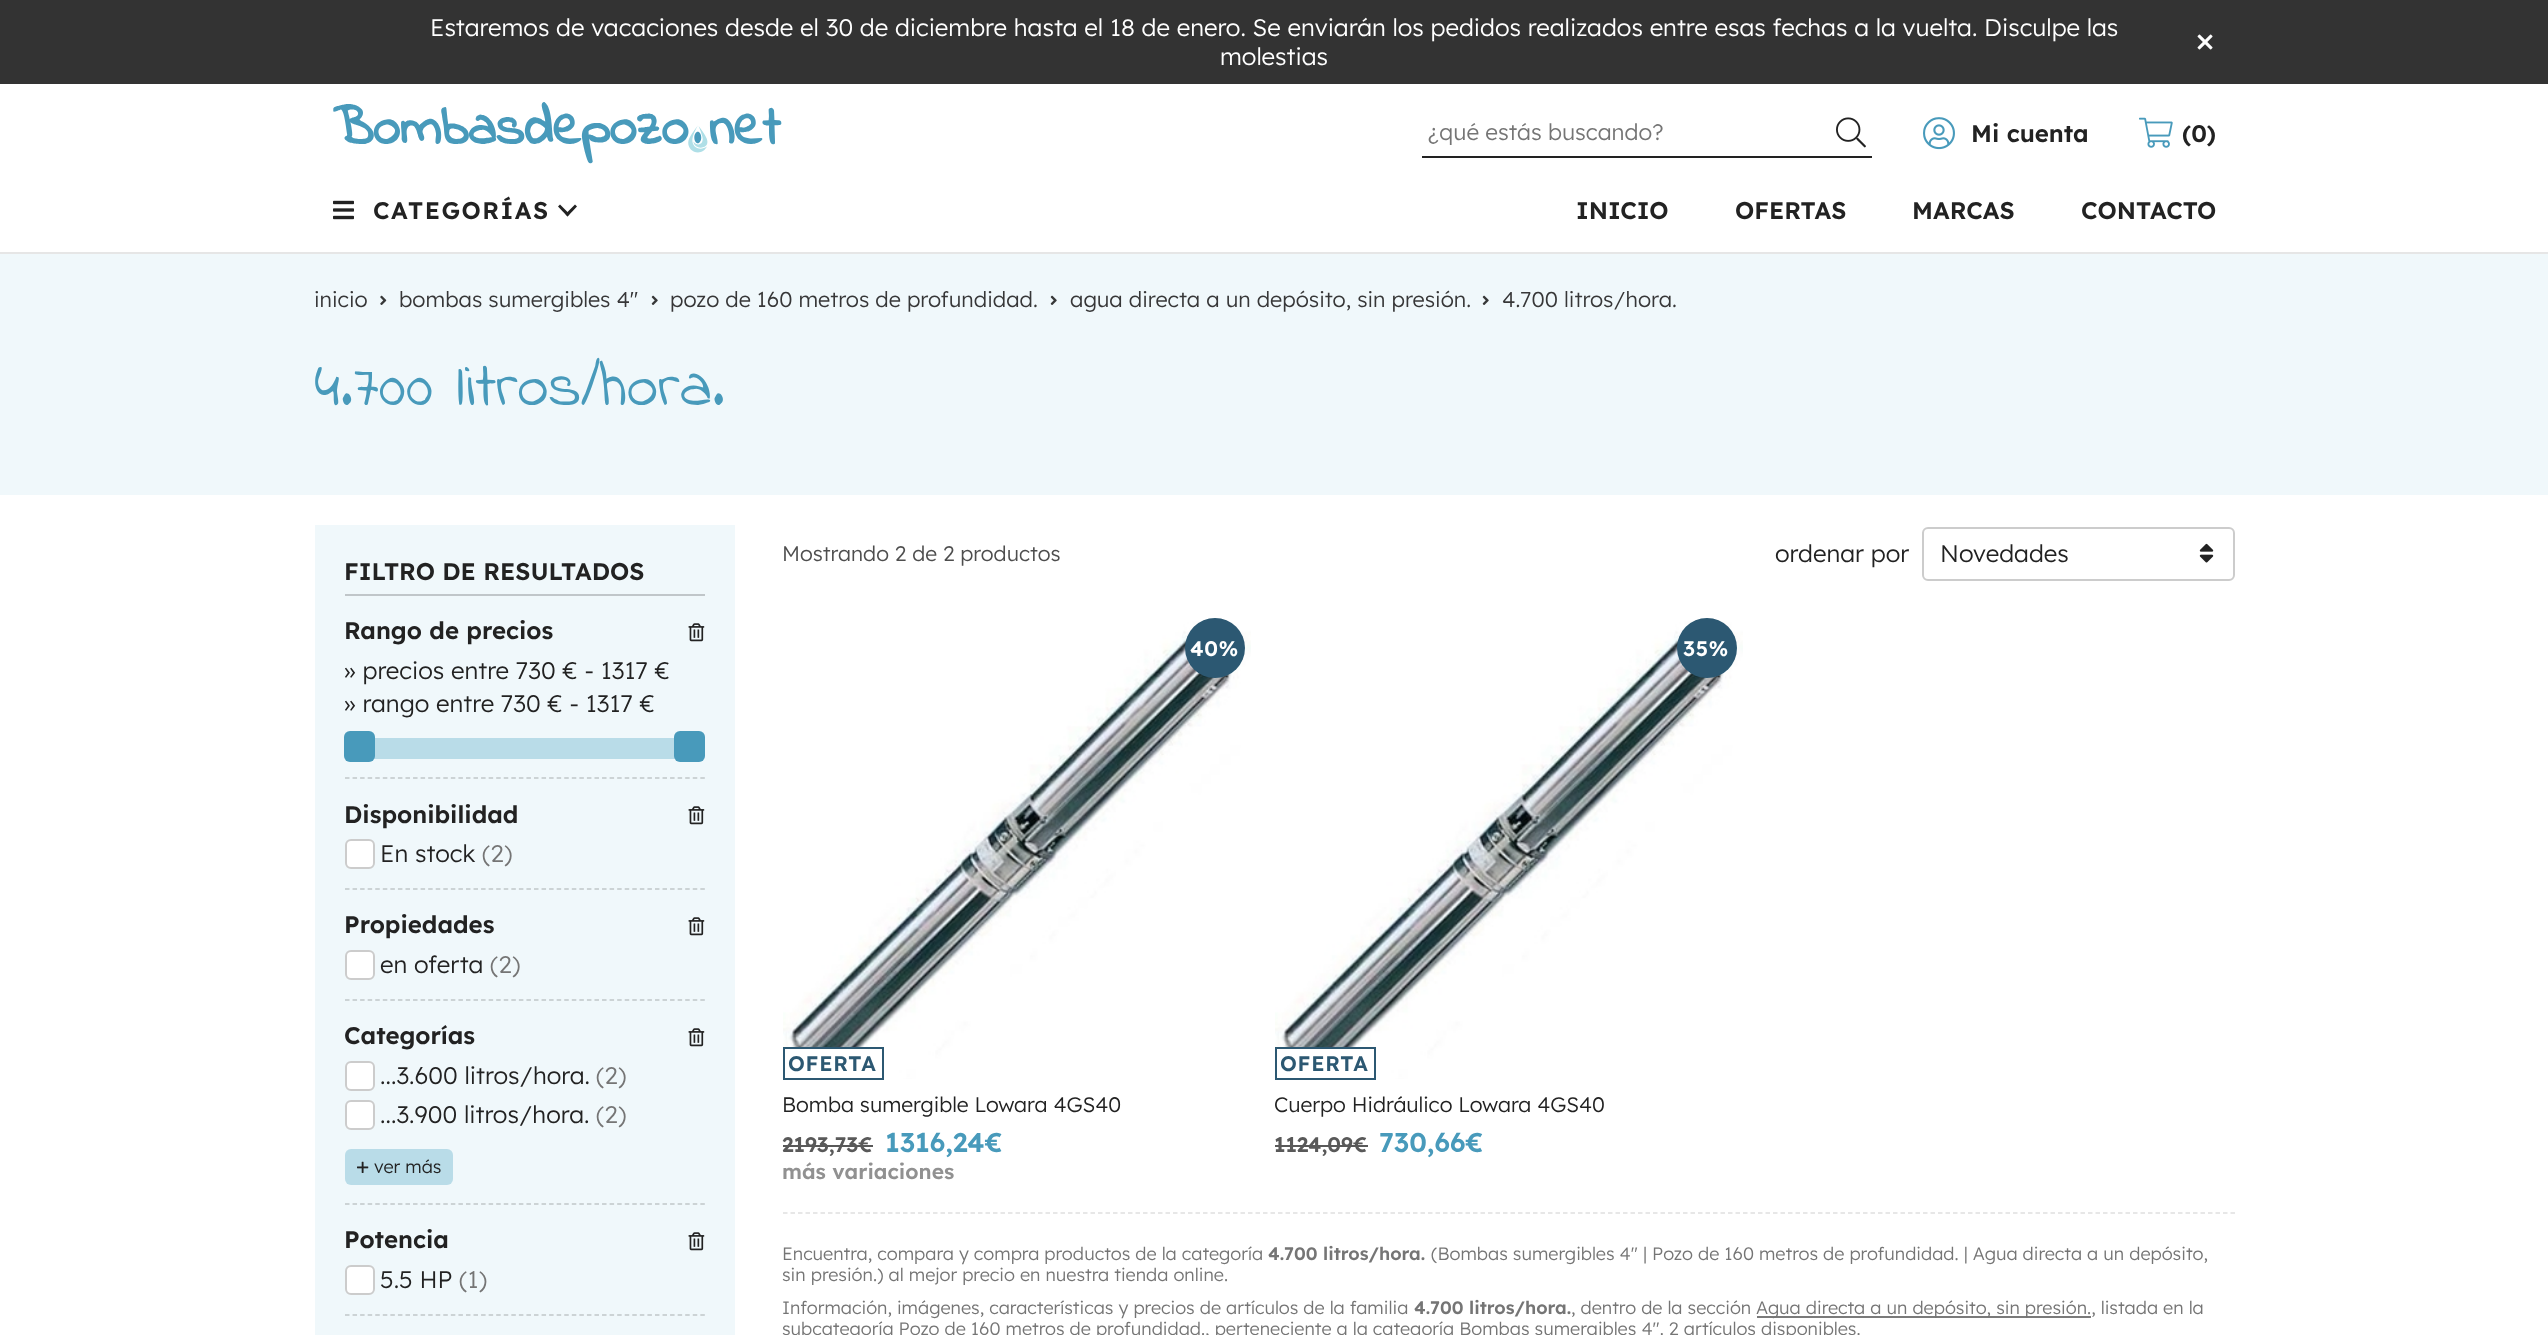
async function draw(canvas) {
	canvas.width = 2548;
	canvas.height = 1335;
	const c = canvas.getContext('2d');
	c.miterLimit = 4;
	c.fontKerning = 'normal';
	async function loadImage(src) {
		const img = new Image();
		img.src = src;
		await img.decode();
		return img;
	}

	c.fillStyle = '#fff';
	c.fillRect(0, 0, 2548, 1335);
	c.fillStyle = '#e6e6e6';
	c.fillRect(0, 252, 2548, 2);
	c.fillStyle = '#333';
	c.fillRect(0, 0, 2548, 84);
	c.font = '300 24px Lexend';
	c.fillStyle = '#fff';
	c.fillText('Estaremos de vacaciones desde el 30 de diciembre hasta el 18 de enero. Se enviarán los pedidos realizados entre esas fechas a la vuelta. Disculpe las', 430, 36);
	c.fillText('molestias', 1220, 65);
	c.drawImage(await loadImage('img1.png'), 2197, 34, 16, 16);
	c.drawImage(await loadImage('img2.png'), 333, 102, 449, 62);
	c.fillStyle = '#222';
	c.fillRect(1422, 156, 450, 2);
	c.font = '300 22.5px Lexend';
	c.fillStyle = '#757575';
	c.fillText('¿qué estás buscando?', 1428, 140);
	c.drawImage(await loadImage('img3.png'), 1836, 117, 30, 31);
	c.drawImage(await loadImage('img4.png'), 1923, 117, 32, 33);
	c.font = '600 24px Lexend';
	c.fillStyle = '#222';
	c.fillText('Mi cuenta', 1971, 142);
	c.drawImage(await loadImage('img5.png'), 2139, 117, 34, 31);
	c.fillText('(0)', 2182, 142);
	c.drawImage(await loadImage('img6.png'), 333, 200, 21, 20);
	c.letterSpacing = '1.5px';
	c.fillText('CATEGORÍAS', 373, 219);
	c.beginPath();
	c.moveTo(560, 204.5);
	c.lineTo(569.5, 214);
	c.lineTo(567.5, 216.5);
	c.lineTo(558, 206.5);
	c.closePath();
	c.fill();
	c.beginPath();
	c.moveTo(565.5, 214);
	c.lineTo(575, 204.5);
	c.lineTo(577, 206.5);
	c.lineTo(567.5, 216.5);
	c.closePath();
	c.fill();
	c.letterSpacing = '0px';
	for (const [text, x, y] of [
		['INICIO', 1576, 219],
		['OFERTAS', 1735, 219],
		['MARCAS', 1912, 219],
		['CONTACTO', 2081, 219],
	]) {
		c.fillText(text, x, y);
	}
	c.fillStyle = '#f0f8fb';
	c.fillRect(0, 254, 2548, 241);
	c.font = '300 21.6px Lexend';
	c.fillStyle = '#373738';
	c.fillText('inicio', 314, 307);
	c.drawImage(await loadImage('img7.png'), 380, 295, 7, 10);
	c.fillText('bombas sumergibles 4"', 399, 307);
	c.drawImage(await loadImage('img8.png'), 651, 295, 7, 10);
	c.fillText('pozo de 160 metros de profundidad.', 670, 307);
	c.drawImage(await loadImage('img8.png'), 1050, 295, 7, 10);
	c.fillText('agua directa a un depósito, sin presión.', 1070, 307);
	c.drawImage(await loadImage('img8.png'), 1482, 295, 7, 10);
	c.fillText('4.700 litros/hora.', 1502, 307);
	c.font = '63px Indie Flower';
	c.fillStyle = '#489abb';
	c.fillText('4.700 litros/hora.', 314, 405);
	c.fillStyle = '#f0f8fb';
	c.fillRect(315, 525, 420, 810);
	c.fillStyle = '#c0c6c9';
	c.fillRect(345, 594, 360, 2);
	c.font = '600 24px Lexend';
	c.fillStyle = '#222';
	c.fillText('FILTRO DE RESULTADOS', 344, 580);
	c.beginPath();
	c.moveTo(345, 778);
	c.lineTo(705, 778);
	c.strokeStyle = '#c0c6c9';
	c.lineWidth = 1.5;
	c.setLineDash([4.5, 3.06]);
	c.stroke();
	c.fillText('Rango de precios', 344, 639);
	c.drawImage(await loadImage('img9.png'), 688, 623, 17, 19);
	c.font = '300 24px Lexend';
	c.fillText('» precios entre 730 € - 1317 €', 344, 679);
	c.fillText('» rango entre 730 € - 1317 €', 344, 712);
	c.fillStyle = '#b9dce8';
	c.fillRect(374, 738, 301, 21);
	c.fillStyle = '#489abb';
	c.beginPath();
	c.roundRect(344, 731, 31, 31, 6);
	c.fill();
	c.beginPath();
	c.roundRect(674, 731, 31, 31, 6);
	c.fill();
	c.beginPath();
	c.moveTo(345, 889);
	c.lineTo(705, 889);
	c.stroke();
	c.font = '600 24px Lexend';
	c.fillStyle = '#222';
	c.fillText('Disponibilidad', 344, 823);
	c.drawImage(await loadImage('img9.png'), 688, 806, 17, 19);
	c.fillStyle = '#fff';
	c.beginPath();
	c.roundRect(346, 840, 28, 28, 5);
	c.fill();
	c.strokeStyle = '#ccc';
	c.lineWidth = 2;
	c.setLineDash([]);
	c.stroke();
	c.font = '300 24px Lexend';
	c.fillStyle = '#222';
	c.fillText('En stock', 380, 862);
	c.fillStyle = '#757575';
	c.fillText('(2)', 482, 862);
	c.beginPath();
	c.moveTo(345, 1000);
	c.lineTo(705, 1000);
	c.strokeStyle = '#c0c6c9';
	c.lineWidth = 1.5;
	c.setLineDash([4.5, 3.06]);
	c.stroke();
	c.font = '600 24px Lexend';
	c.fillStyle = '#222';
	c.fillText('Propiedades', 344, 933);
	c.drawImage(await loadImage('img9.png'), 688, 917, 17, 19);
	c.fillStyle = '#fff';
	c.beginPath();
	c.roundRect(346, 951, 28, 28, 5);
	c.fill();
	c.strokeStyle = '#ccc';
	c.lineWidth = 2;
	c.setLineDash([]);
	c.stroke();
	c.font = '300 24px Lexend';
	c.fillStyle = '#222';
	c.fillText('en oferta', 380, 973);
	c.fillStyle = '#757575';
	c.fillText('(2)', 490, 973);
	c.beginPath();
	c.moveTo(345, 1204);
	c.lineTo(705, 1204);
	c.strokeStyle = '#c0c6c9';
	c.lineWidth = 1.5;
	c.setLineDash([4.5, 3.06]);
	c.stroke();
	c.font = '600 24px Lexend';
	c.fillStyle = '#222';
	c.fillText('Categorías', 344, 1044);
	c.drawImage(await loadImage('img9.png'), 688, 1028, 17, 19);
	c.fillStyle = '#fff';
	c.beginPath();
	c.roundRect(346, 1062, 28, 28, 5);
	c.fill();
	c.strokeStyle = '#ccc';
	c.lineWidth = 2;
	c.setLineDash([]);
	c.stroke();
	c.font = '300 24px Lexend';
	c.fillStyle = '#222';
	c.fillText('...3.600 litros/hora.', 380, 1084);
	c.fillStyle = '#757575';
	c.fillText('(2)', 596, 1084);
	c.fillStyle = '#fff';
	c.beginPath();
	c.roundRect(346, 1101, 28, 28, 5);
	c.fill();
	c.stroke();
	c.fillStyle = '#222';
	c.fillText('...3.900 litros/hora.', 380, 1123);
	c.fillStyle = '#757575';
	c.fillText('(2)', 596, 1123);
	c.fillStyle = '#b9dce8';
	c.beginPath();
	c.roundRect(345, 1149, 108, 36, 6);
	c.fill();
	c.drawImage(await loadImage('img10.png'), 357, 1161, 12, 12);
	c.font = '300 18px Lexend';
	c.fillStyle = '#222';
	c.fillText('ver más', 374, 1173);
	c.beginPath();
	c.moveTo(345, 1315);
	c.lineTo(705, 1315);
	c.strokeStyle = '#c0c6c9';
	c.lineWidth = 1.5;
	c.setLineDash([4.5, 3.06]);
	c.stroke();
	c.font = '600 24px Lexend';
	c.fillText('Potencia', 344, 1248);
	c.drawImage(await loadImage('img9.png'), 688, 1232, 17, 19);
	c.fillStyle = '#fff';
	c.beginPath();
	c.roundRect(346, 1266, 28, 28, 5);
	c.fill();
	c.strokeStyle = '#ccc';
	c.lineWidth = 2;
	c.setLineDash([]);
	c.stroke();
	c.font = '300 24px Lexend';
	c.fillStyle = '#222';
	c.fillText('5.5 HP', 380, 1288);
	c.fillStyle = '#757575';
	c.fillText('(1)', 459, 1288);
	c.font = '300 21px Lexend';
	c.fillStyle = '#4e4e4e';
	c.fillText('Mostrando 2 de 2 productos', 782, 561);
	c.font = '300 24px Lexend';
	c.fillStyle = '#222';
	c.fillText('ordenar por', 1775, 562);
	c.beginPath();
	c.roundRect(1923, 528, 311, 52, 5);
	c.stroke();
	c.fillText('Novedades', 1940, 562);
	c.drawImage(await loadImage('img11.png'), 2199, 543, 15, 20);
	c.drawImage(await loadImage('img12.png'), 783, 621, 468, 458);
	c.fillStyle = '#2c5872';
	c.beginPath();
	c.arc(1215, 648, 30, 0, 2 * Math.PI);
	c.fill();
	c.letterSpacing = '0.75px';
	c.font = '600 21px Lexend';
	c.fillStyle = '#fff';
	c.fillText('40%', 1190, 656);
	c.fillRect(787, 1049, 81, 29);
	c.strokeStyle = '#2c5872';
	c.strokeRect(784, 1048, 99, 31);
	c.fillStyle = '#2c5872';
	c.fillText('OFERTA', 788, 1071);
	c.letterSpacing = '0px';
	c.font = '300 21px Lexend';
	c.fillStyle = '#222';
	c.fillText('Bomba sumergible Lowara 4GS40', 782, 1112);
	c.font = '600 21px Lexend';
	c.fillStyle = '#595959';
	c.fillText('2193,73€', 782, 1152);
	c.fillRect(783, 1145, 90, 2);
	c.font = '600 27px Lexend';
	c.fillStyle = '#489abb';
	c.fillText('1316,24€', 885, 1152);
	c.font = '600 21px Lexend';
	c.fillStyle = '#919191';
	c.fillText('más variaciones', 782, 1179);
	c.drawImage(await loadImage('img13.png'), 1275, 621, 468, 458);
	c.fillStyle = '#2c5872';
	c.beginPath();
	c.arc(1707, 648, 30, 0, 2 * Math.PI);
	c.fill();
	c.letterSpacing = '0.75px';
	c.fillStyle = '#fff';
	c.fillText('35%', 1683, 656);
	c.fillRect(1279, 1049, 81, 29);
	c.strokeRect(1276, 1048, 99, 31);
	c.fillStyle = '#2c5872';
	c.fillText('OFERTA', 1280, 1071);
	c.letterSpacing = '0px';
	c.font = '300 21px Lexend';
	c.fillStyle = '#222';
	c.fillText('Cuerpo Hidráulico Lowara 4GS40', 1274, 1112);
	c.font = '600 21px Lexend';
	c.fillStyle = '#595959';
	c.fillText('1124,09€', 1274, 1152);
	c.fillRect(1275, 1145, 93, 2);
	c.font = '600 27px Lexend';
	c.fillStyle = '#489abb';
	c.fillText('730,66€', 1379, 1152);
	c.beginPath();
	c.moveTo(783, 1213);
	c.lineTo(2235, 1213);
	c.strokeStyle = '#e0e0e0';
	c.lineWidth = 1.5;
	c.setLineDash([4.5, 3]);
	c.stroke();
	c.font = '300 18px Lexend';
	c.fillStyle = '#757575';
	c.fillText('Encuentra, compara y compra productos de la categoría', 782, 1260);
	c.font = '600 18px Lexend';
	c.fillText('4.700 litros/hora.', 1268, 1260);
	c.font = '300 18px Lexend';
	for (const [text, x, y] of [
		['(Bombas sumergibles 4" | Pozo de 160 metros de profundidad. | Agua directa a un depósito,', 1431, 1260],
		['sin presión.) al mejor precio en nuestra tienda online.', 782, 1281],
		['Información, imágenes, características y precios de artículos de la familia', 782, 1314],
	]) {
		c.fillText(text, x, y);
	}
	c.font = '600 18px Lexend';
	c.fillText('4.700 litros/hora.', 1414, 1314);
	c.font = '300 18px Lexend';
	c.fillText(', dentro de la sección', 1571, 1314);
	c.fillStyle = '#7a7a7a';
	c.fillRect(1757, 1316, 334, 2);
	c.fillStyle = '#757575';
	c.fillText('Agua directa a un depósito, sin presión., listada en la', 1756, 1314);
	c.fillText('subcategoría Pozo de 160 metros de profundidad., perteneciente a la categoría Bombas sumergibles 4". 2 artículos disponibles.', 782, 1335);
}

draw(document.querySelector('canvas'));
